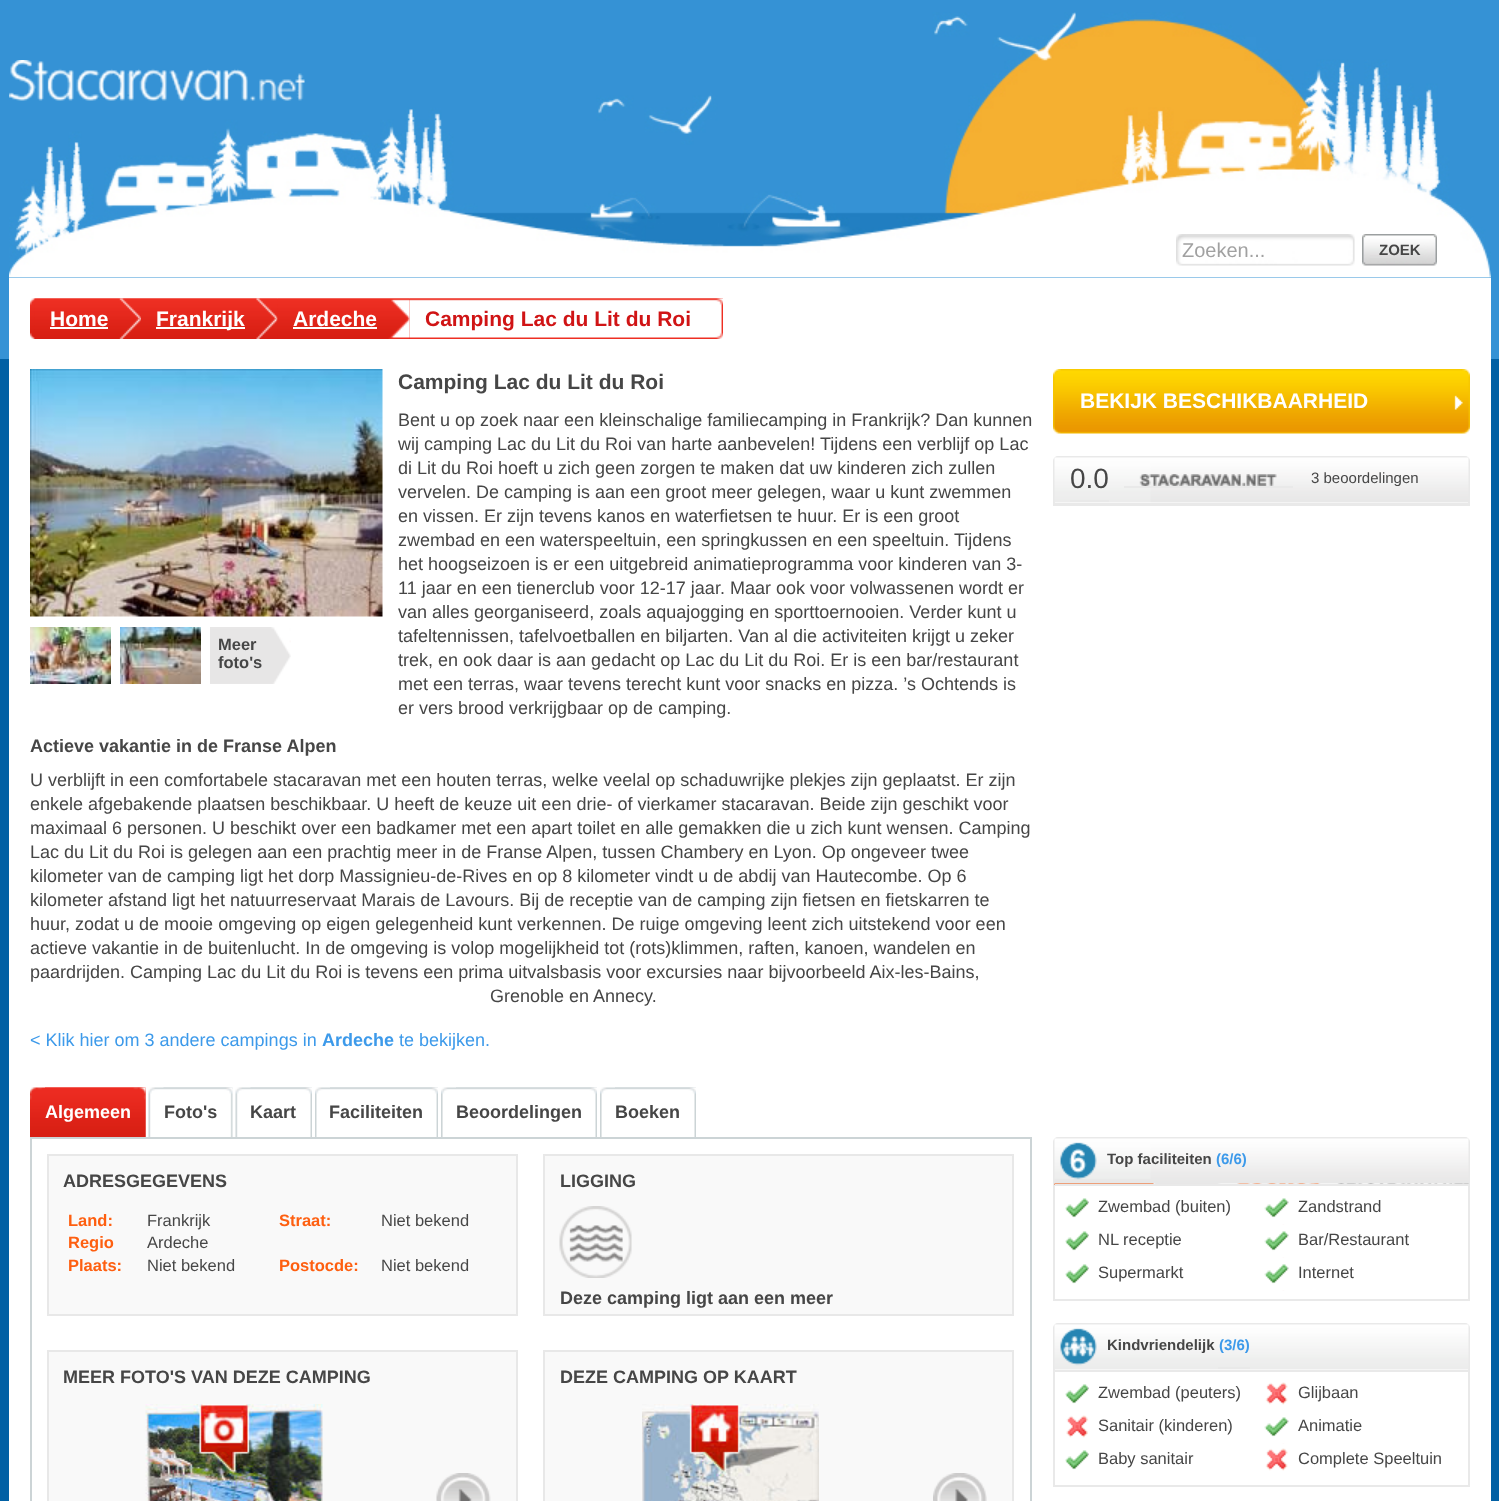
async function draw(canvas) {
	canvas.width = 1499;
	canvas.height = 1501;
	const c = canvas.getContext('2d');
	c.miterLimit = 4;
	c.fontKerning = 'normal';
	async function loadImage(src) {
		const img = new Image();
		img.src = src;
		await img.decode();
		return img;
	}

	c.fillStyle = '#0160a4';
	c.fillRect(0, 0, 1499, 1501);
	c.fillStyle = '#3592d5';
	c.fillRect(0, 0, 1499, 359);
	c.drawImage(await loadImage('img1.png'), 9, 12, 1482, 266);
	c.drawImage(await loadImage('img2.png'), 9, 60, 296, 41);
	c.drawImage(await loadImage('img3.png'), 1176, 234, 179, 32);
	c.font = '20px Liberation Sans';
	c.fillStyle = '#a1a1a1';
	c.fillText('Zoeken...', 1182, 257);
	c.drawImage(await loadImage('img4.png'), 1362, 234, 75, 32);
	c.font = 'bold 15px Liberation Sans';
	c.fillStyle = '#464646';
	c.fillText('ZOEK', 1379, 255);
	c.fillStyle = '#fff';
	c.fillRect(9, 278, 1482, 1223);
	c.drawImage(await loadImage('img5.png'), 30, 298, 693, 41);
	c.drawImage(await loadImage('img6.png'), 34, 298, 107, 41);
	c.font = 'bold 21px Liberation Sans';
	c.fillText('Home', 50, 326);
	c.fillRect(50, 327, 58, 2);
	c.drawImage(await loadImage('img7.png'), 141, 298, 137, 41);
	c.fillRect(156, 327, 89, 2);
	c.fillText('Frankrijk', 156, 326);
	c.drawImage(await loadImage('img8.png'), 277, 298, 133, 41);
	c.fillText('Ardeche', 293, 326);
	c.fillRect(293, 327, 84, 2);
	c.drawImage(await loadImage('img9.png'), 409, 298, 314, 41);
	c.fillStyle = '#d01415';
	c.fillText('Camping Lac du Lit du Roi', 425, 326);
	c.fillStyle = '#464646';
	c.fillText('Camping Lac du Lit du Roi', 398, 389);
	c.font = '18px Liberation Sans';
	for (const [text, x, y] of [
		['Bent u op zoek naar een kleinschalige familiecamping in Frankrijk? Dan kunnen', 398, 426],
		['wij camping Lac du Lit du Roi van harte aanbevelen! Tijdens een verblijf op Lac', 398, 450],
		['di Lit du Roi hoeft u zich geen zorgen te maken dat uw kinderen zich zullen', 398, 474],
		['vervelen. De camping is aan een groot meer gelegen, waar u kunt zwemmen', 398, 498],
		['en vissen. Er zijn tevens kanos en waterfietsen te huur. Er is een groot', 398, 522],
		['zwembad en een waterspeeltuin, een springkussen en een speeltuin. Tijdens', 398, 546],
		['het hoogseizoen is er een uitgebreid animatieprogramma voor kinderen van 3-', 398, 570],
		['11 jaar en een tienerclub voor 12-17 jaar. Maar ook voor volwassenen wordt er', 398, 594],
		['van alles georganiseerd, zoals aquajogging en sporttoernooien. Verder kunt u', 398, 618],
	]) {
		c.fillText(text, x, y);
	}
	c.drawImage(await loadImage('img10.png'), 30, 369, 353, 248);
	c.drawImage(await loadImage('img11.png'), 30, 627, 81, 57);
	c.drawImage(await loadImage('img12.png'), 120, 627, 81, 57);
	c.drawImage(await loadImage('img13.png'), 210, 627, 81, 57);
	c.font = 'bold 16.5px Liberation Sans';
	c.fillText('Meer', 218, 650);
	c.fillText('foto\'s', 218, 668);
	c.font = '18px Liberation Sans';
	for (const [text, x, y] of [
		['tafeltennissen, tafelvoetballen en biljarten. Van al die activiteiten krijgt u zeker', 398, 642],
		['trek, en ook daar is aan gedacht op Lac du Lit du Roi. Er is een bar/restaurant', 398, 666],
		['met een terras, waar tevens terecht kunt voor snacks en pizza. ’s Ochtends is', 398, 690],
		['er vers brood verkrijgbaar op de camping.', 398, 714],
	]) {
		c.fillText(text, x, y);
	}
	c.font = 'bold 18px Liberation Sans';
	c.fillText('Actieve vakantie in de Franse Alpen', 30, 752);
	c.font = '18px Liberation Sans';
	for (const [text, x, y] of [
		['U verblijft in een comfortabele stacaravan met een houten terras, welke veelal op schaduwrijke plekjes zijn geplaatst. Er zijn', 30, 786],
		['enkele afgebakende plaatsen beschikbaar. U heeft de keuze uit een drie- of vierkamer stacaravan. Beide zijn geschikt voor', 30, 810],
		['maximaal 6 personen. U beschikt over een badkamer met een apart toilet en alle gemakken die u zich kunt wensen. Camping', 30, 834],
		['Lac du Lit du Roi is gelegen aan een prachtig meer in de Franse Alpen, tussen Chambery en Lyon. Op ongeveer twee', 30, 858],
		['kilometer van de camping ligt het dorp Massignieu-de-Rives en op 8 kilometer vindt u de abdij van Hautecombe. Op 6', 30, 882],
		['kilometer afstand ligt het natuurreservaat Marais de Lavours. Bij de receptie van de camping zijn fietsen en fietskarren te', 30, 906],
		['huur, zodat u de mooie omgeving op eigen gelegenheid kunt verkennen. De ruige omgeving leent zich uitstekend voor een', 30, 930],
		['actieve vakantie in de buitenlucht. In de omgeving is volop mogelijkheid tot (rots)klimmen, raften, kanoen, wandelen en', 30, 954],
		['paardrijden. Camping Lac du Lit du Roi is tevens een prima uitvalsbasis voor excursies naar bijvoorbeeld Aix-les-Bains,', 30, 978],
		['Grenoble en Annecy.', 490, 1002],
	]) {
		c.fillText(text, x, y);
	}
	c.fillStyle = '#3d9aea';
	c.fillText('< Klik hier om 3 andere campings in', 30, 1046);
	c.font = 'bold 18px Liberation Sans';
	c.fillText('Ardeche', 322, 1046);
	c.font = '18px Liberation Sans';
	c.fillText('te bekijken.', 399, 1046);
	c.drawImage(await loadImage('img14.png'), 1053, 369, 417, 65);
	c.font = 'bold 21px Liberation Sans';
	c.fillStyle = '#fff';
	c.fillText('BEKIJK BESCHIKBAARHEID', 1080, 408);
	c.beginPath();
	c.roundRect(1054, 457, 415, 48, [4, 4, 0, 0]);
	c.strokeStyle = '#e9e9e9';
	c.lineWidth = 2;
	c.stroke();
	c.drawImage(await loadImage('img15.png'), 1054, 457, 415, 46);
	c.fillStyle = '#e9e9e9';
	c.fillRect(1055, 503, 414, 1);
	c.fillRect(1070, 500, 39, 2);
	c.font = '28px Liberation Sans';
	c.fillStyle = '#464646';
	c.fillText('0.0', 1070, 488);
	c.drawImage(await loadImage('img16.png'), 1139, 474, 138, 12);
	c.fillStyle = '#e9e9e9';
	c.fillRect(1124, 486, 169, 2);
	c.font = '15px Liberation Sans';
	c.fillStyle = '#464646';
	c.fillText('3 beoordelingen', 1311, 483);
	c.drawImage(await loadImage('img17.png'), 30, 1087, 116, 50);
	c.drawImage(await loadImage('img18.png'), 45, 1087, 101, 50);
	c.font = 'bold 18px Liberation Sans';
	c.fillStyle = '#fff';
	c.fillText('Algemeen', 45, 1118);
	c.drawImage(await loadImage('img19.png'), 148, 1087, 85, 50);
	c.drawImage(await loadImage('img20.png'), 163, 1087, 70, 50);
	c.fillStyle = '#464646';
	c.fillText('Foto\'s', 164, 1118);
	c.drawImage(await loadImage('img21.png'), 235, 1087, 77, 50);
	c.drawImage(await loadImage('img22.png'), 250, 1087, 62, 50);
	c.fillText('Kaart', 250, 1118);
	c.drawImage(await loadImage('img23.png'), 315, 1087, 123, 50);
	c.drawImage(await loadImage('img24.png'), 330, 1087, 108, 50);
	c.fillText('Faciliteiten', 329, 1118);
	c.drawImage(await loadImage('img25.png'), 441, 1087, 156, 50);
	c.drawImage(await loadImage('img26.png'), 456, 1087, 141, 50);
	c.fillText('Beoordelingen', 456, 1118);
	c.drawImage(await loadImage('img27.png'), 600, 1087, 96, 50);
	c.drawImage(await loadImage('img28.png'), 615, 1087, 81, 50);
	c.fillText('Boeken', 615, 1118);
	c.strokeStyle = '#ccd4d6';
	c.strokeRect(31, 1138, 1000, 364);
	c.fillStyle = '#f9f9f9';
	c.beginPath();
	c.rect(48, 1155, 469, 160);
	c.fill();
	c.strokeStyle = '#e8e8e8';
	c.stroke();
	c.fillStyle = '#464646';
	c.fillText('ADRESGEGEVENS', 63, 1187);
	c.font = 'bold 16.5px Liberation Sans';
	c.fillStyle = '#fe5f10';
	c.fillText('Land:', 68, 1226);
	c.font = '16.5px Liberation Sans';
	c.fillStyle = '#464646';
	c.fillText('Frankrijk', 147, 1226);
	c.font = 'bold 16.5px Liberation Sans';
	c.fillStyle = '#fe5f10';
	c.fillText('Straat:', 279, 1226);
	c.font = '16.5px Liberation Sans';
	c.fillStyle = '#464646';
	c.fillText('Niet bekend', 381, 1226);
	c.font = 'bold 16.5px Liberation Sans';
	c.fillStyle = '#fe5f10';
	c.fillText('Regio', 68, 1248);
	c.font = '16.5px Liberation Sans';
	c.fillStyle = '#464646';
	c.fillText('Ardeche', 147, 1248);
	c.font = 'bold 16.5px Liberation Sans';
	c.fillStyle = '#fe5f10';
	c.fillText('Plaats:', 68, 1271);
	c.font = '16.5px Liberation Sans';
	c.fillStyle = '#464646';
	c.fillText('Niet bekend', 147, 1271);
	c.font = 'bold 16.5px Liberation Sans';
	c.fillStyle = '#fe5f10';
	c.fillText('Postocde:', 279, 1271);
	c.font = '16.5px Liberation Sans';
	c.fillStyle = '#464646';
	c.fillText('Niet bekend', 381, 1271);
	c.fillStyle = '#f9f9f9';
	c.beginPath();
	c.rect(544, 1155, 469, 160);
	c.fill();
	c.stroke();
	c.font = 'bold 18px Liberation Sans';
	c.fillStyle = '#464646';
	c.fillText('LIGGING', 560, 1187);
	c.drawImage(await loadImage('img29.png'), 559, 1206, 73, 72);
	c.fillText('Deze camping ligt aan een meer', 560, 1304);
	c.fillStyle = '#f9f9f9';
	c.beginPath();
	c.rect(48, 1351, 469, 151);
	c.fill();
	c.stroke();
	c.fillStyle = '#464646';
	c.fillText('MEER FOTO\'S VAN DEZE CAMPING', 63, 1383);
	c.drawImage(await loadImage('img30.png'), 145, 1404, 178, 97);
	c.drawImage(await loadImage('img31.png'), 436, 1473, 55, 28);
	c.fillStyle = '#f9f9f9';
	c.beginPath();
	c.rect(544, 1351, 469, 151);
	c.fill();
	c.stroke();
	c.fillStyle = '#464646';
	c.fillText('DEZE CAMPING OP KAART', 560, 1383);
	c.drawImage(await loadImage('img32.png'), 642, 1404, 177, 97);
	c.drawImage(await loadImage('img33.png'), 933, 1473, 54, 28);
	c.beginPath();
	c.roundRect(1054, 1138, 415, 162, [4, 4, 0, 0]);
	c.strokeStyle = '#e9e9e9';
	c.stroke();
	c.drawImage(await loadImage('img34.png'), 1054, 1138, 415, 47);
	c.fillStyle = '#e9e9e9';
	c.fillRect(1055, 1184, 414, 2);
	c.font = 'bold 15px Liberation Sans';
	c.fillStyle = '#464646';
	c.fillText('Top faciliteiten', 1107, 1164);
	c.fillStyle = '#3d9aea';
	c.fillText('(6/6)', 1216, 1164);
	c.drawImage(await loadImage('img35.png'), 1065, 1198, 24, 20);
	c.font = '16.5px Liberation Sans';
	c.fillStyle = '#464646';
	c.fillText('Zwembad (buiten)', 1098, 1212);
	c.drawImage(await loadImage('img36.png'), 1264, 1198, 25, 27);
	c.fillText('Zandstrand', 1298, 1212);
	c.drawImage(await loadImage('img35.png'), 1065, 1231, 24, 20);
	c.fillText('NL receptie', 1098, 1245);
	c.drawImage(await loadImage('img36.png'), 1264, 1231, 25, 27);
	c.fillText('Bar/Restaurant', 1298, 1245);
	c.drawImage(await loadImage('img35.png'), 1065, 1264, 24, 20);
	c.fillText('Supermarkt', 1098, 1278);
	c.drawImage(await loadImage('img36.png'), 1264, 1264, 25, 27);
	c.fillText('Internet', 1298, 1278);
	c.beginPath();
	c.roundRect(1054, 1324, 415, 162, [4, 4, 0, 0]);
	c.stroke();
	c.drawImage(await loadImage('img37.png'), 1054, 1324, 415, 46);
	c.fillStyle = '#e9e9e9';
	c.fillRect(1055, 1370, 414, 2);
	c.font = 'bold 15px Liberation Sans';
	c.fillStyle = '#464646';
	c.fillText('Kindvriendelijk', 1107, 1350);
	c.fillStyle = '#e9e9e9';
	c.fillRect(1218, 1367, 32, 2);
	c.fillStyle = '#3d9aea';
	c.fillText('(3/6)', 1219, 1350);
	c.drawImage(await loadImage('img35.png'), 1065, 1384, 24, 20);
	c.font = '16.5px Liberation Sans';
	c.fillStyle = '#464646';
	c.fillText('Zwembad (peuters)', 1098, 1398);
	c.drawImage(await loadImage('img38.png'), 1265, 1382, 23, 23);
	c.fillText('Glijbaan', 1298, 1398);
	c.drawImage(await loadImage('img39.png'), 1066, 1415, 23, 23);
	c.fillText('Sanitair (kinderen)', 1098, 1431);
	c.drawImage(await loadImage('img36.png'), 1264, 1417, 25, 27);
	c.fillText('Animatie', 1298, 1431);
	c.drawImage(await loadImage('img35.png'), 1065, 1450, 24, 20);
	c.fillText('Baby sanitair', 1098, 1464);
	c.drawImage(await loadImage('img38.png'), 1265, 1448, 23, 23);
	c.fillText('Complete Speeltuin', 1298, 1464);
}

draw(document.querySelector('canvas'));
